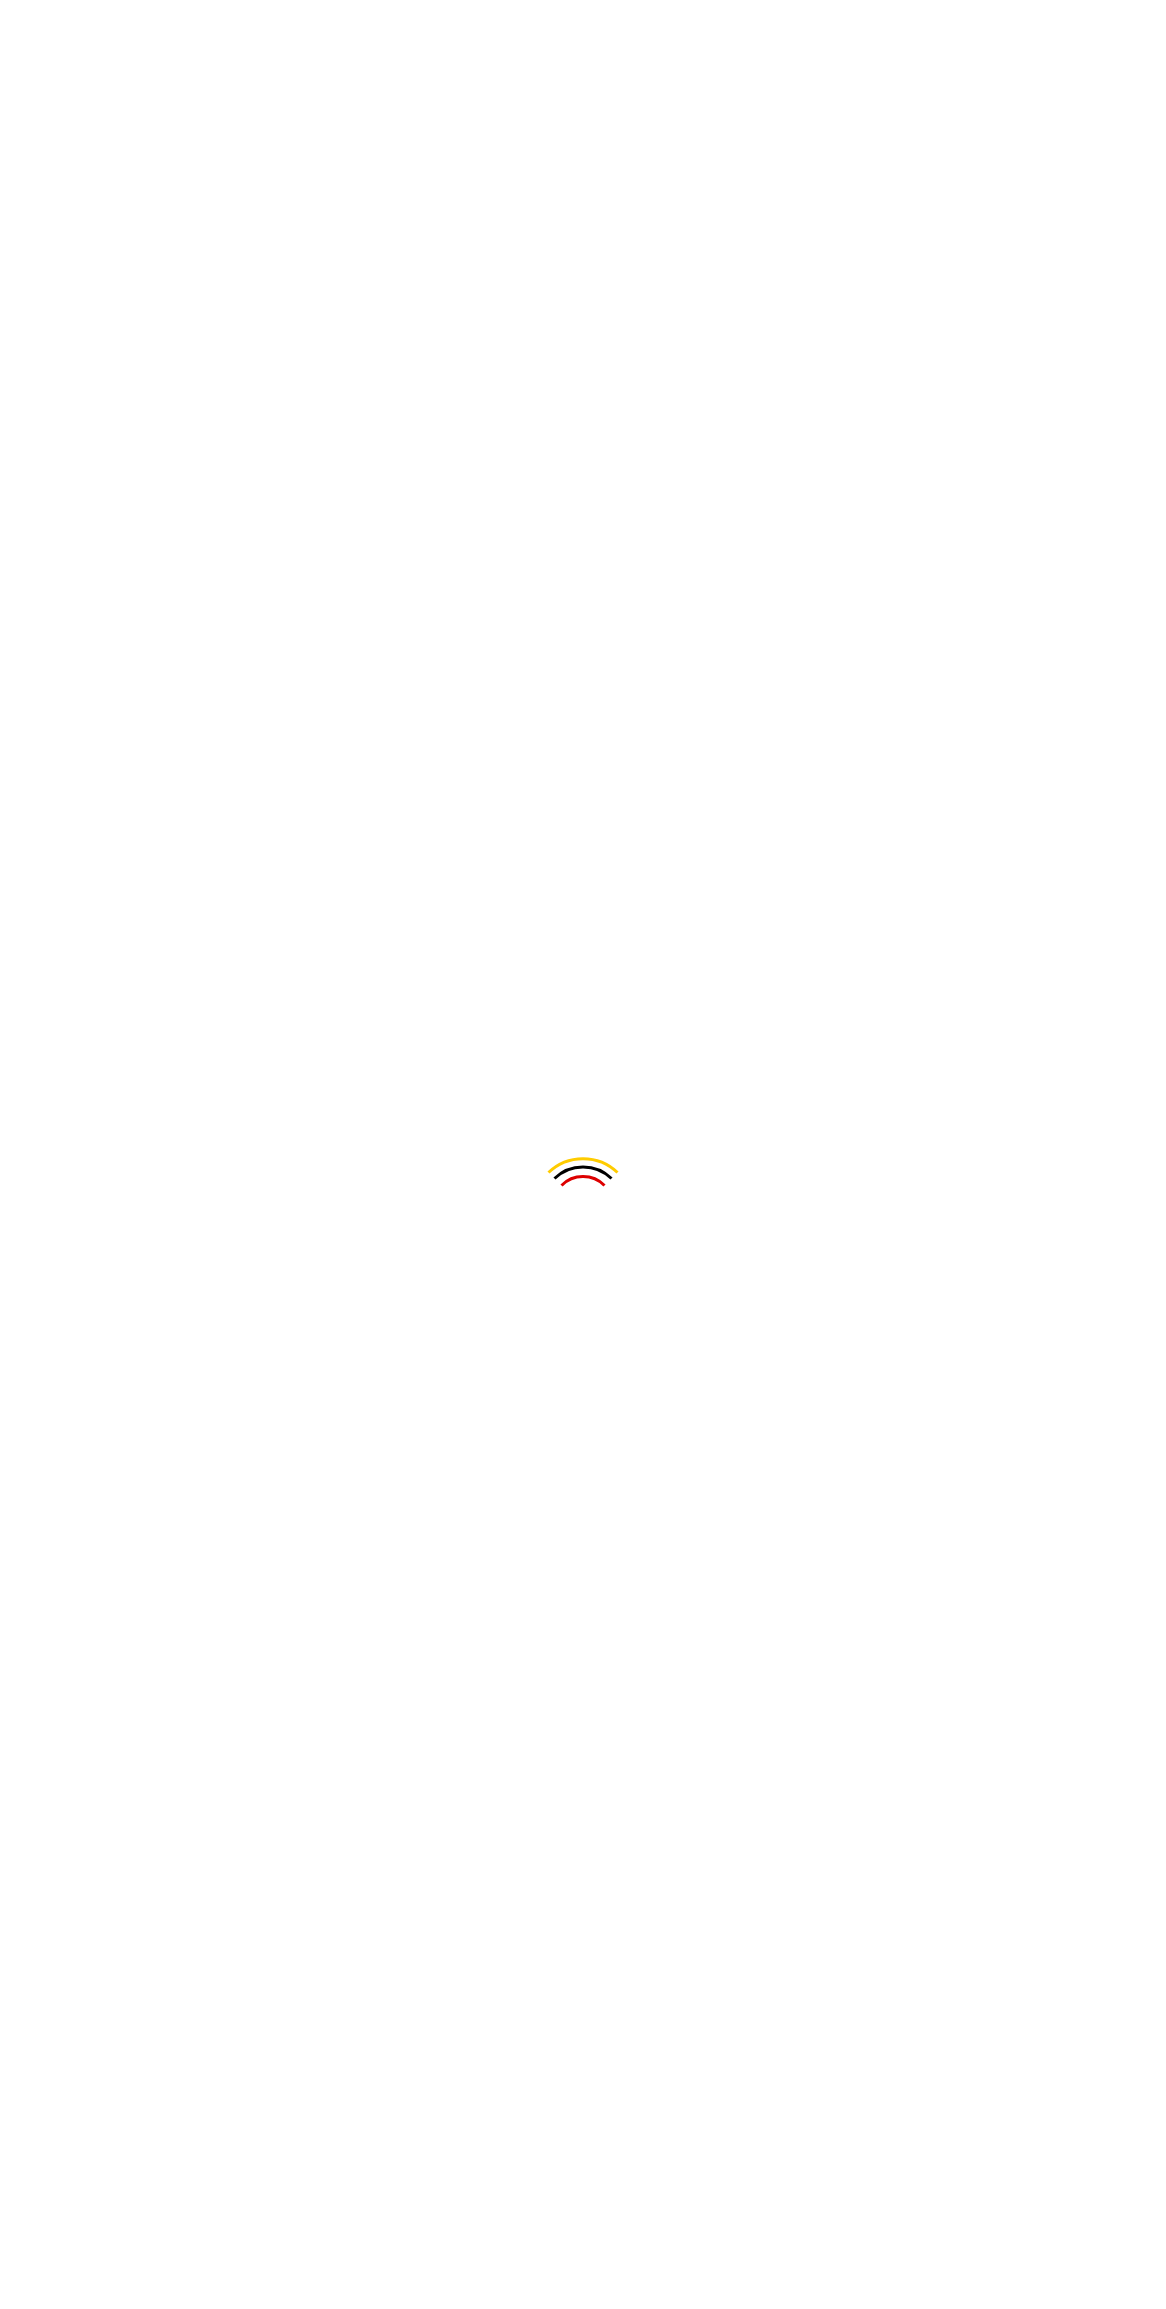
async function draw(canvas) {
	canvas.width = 1166;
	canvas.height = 2309;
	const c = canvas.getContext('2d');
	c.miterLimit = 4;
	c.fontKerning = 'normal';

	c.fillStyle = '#fff';
	c.fillRect(0, 0, 1166, 2309);
	c.beginPath();
	c.moveTo(548.5, 1172.5);
	c.bezierCurveTo(567.5, 1154, 598.5, 1154, 617.5, 1172.5);
	c.strokeStyle = '#fc0';
	c.lineWidth = 3;
	c.stroke();
	c.beginPath();
	c.moveTo(554.5, 1178.5);
	c.bezierCurveTo(570, 1163, 596, 1163, 611.5, 1178.5);
	c.strokeStyle = '#000';
	c.stroke();
	c.beginPath();
	c.moveTo(561.5, 1185.5);
	c.bezierCurveTo(573, 1173.5, 593, 1173.5, 604.5, 1185.5);
	c.strokeStyle = '#d00';
	c.stroke();
}

draw(document.querySelector('canvas'));
